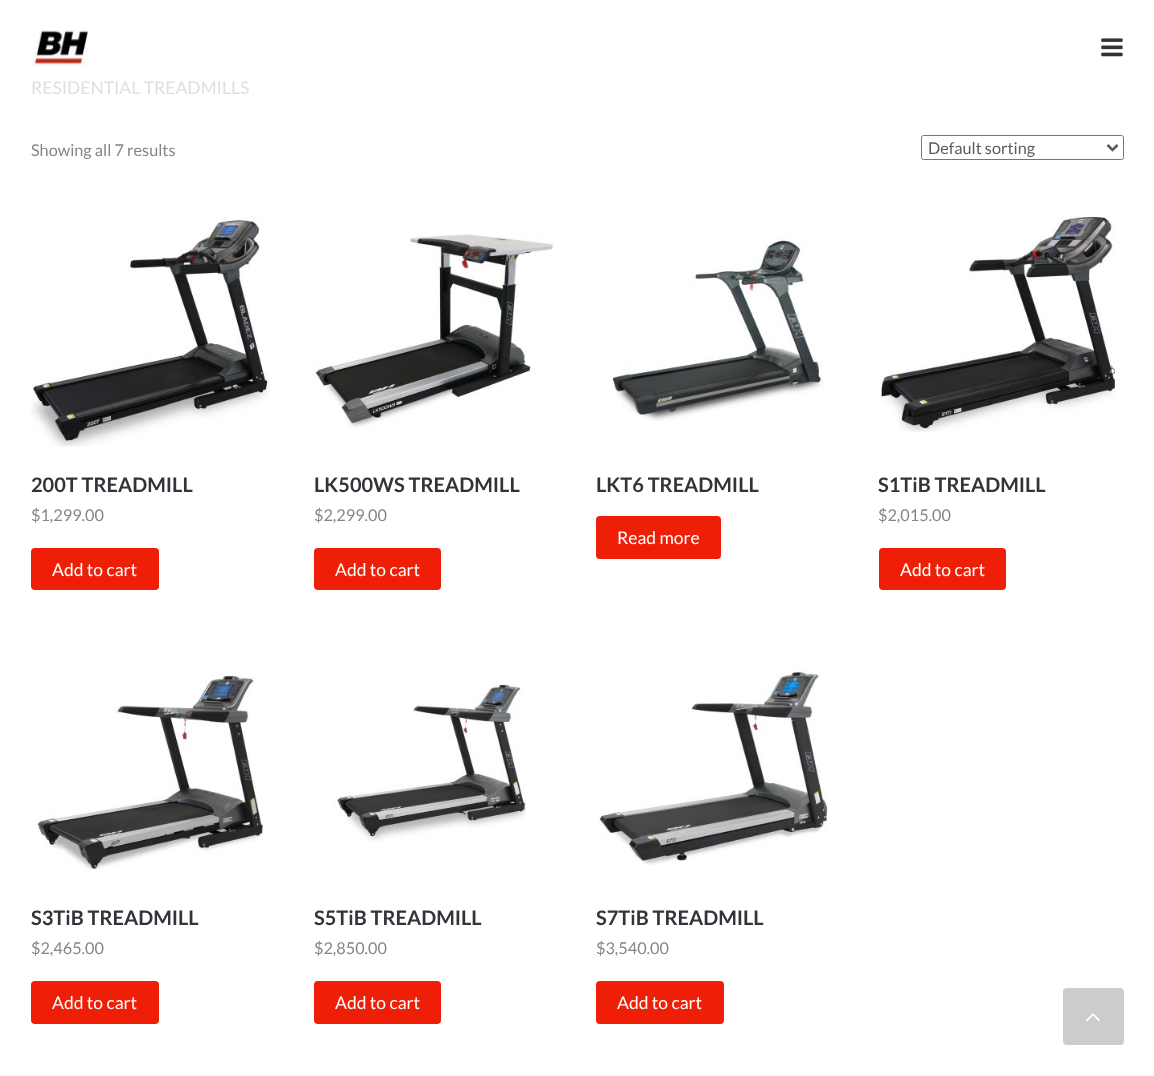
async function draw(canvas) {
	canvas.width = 1154;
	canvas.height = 1076;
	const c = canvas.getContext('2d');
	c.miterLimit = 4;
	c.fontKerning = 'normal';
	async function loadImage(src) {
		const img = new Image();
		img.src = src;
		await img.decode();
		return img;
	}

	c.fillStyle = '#fff';
	c.fillRect(0, 0, 1154, 1076);
	c.drawImage(await loadImage('img1.png'), 31, 30, 57, 37);
	c.drawImage(await loadImage('img2.png'), 1101, 38, 22, 19);
	c.font = '17.5px Lato';
	c.fillStyle = '#dedfdf';
	c.fillText('RESIDENTIAL TREADMILLS', 31, 94);
	c.font = '16.25px Lato';
	c.fillStyle = '#838588';
	c.fillText('Showing all 7 results', 31, 156);
	c.beginPath();
	c.roundRect(921.5, 135.5, 202, 24, 2);
	c.strokeStyle = '#767676';
	c.stroke();
	c.beginPath();
	c.moveTo(1107.5, 145);
	c.lineTo(1112.5, 150);
	c.lineTo(1117.5, 145);
	c.strokeStyle = '#5a5d60';
	c.lineWidth = 2.5;
	c.stroke();
	c.fillStyle = '#5a5d60';
	c.fillText('Default sorting', 928, 154);
	c.drawImage(await loadImage('img3.png'), 31, 216, 239, 231);
	c.font = 'bold 20px Lato';
	c.fillStyle = '#313539';
	c.fillText('200T TREADMILL', 31, 492);
	c.font = '16.25px Lato';
	c.fillStyle = '#838588';
	c.fillText('$1,299.00', 31, 521);
	c.fillStyle = '#ef1e07';
	c.beginPath();
	c.roundRect(31, 548, 128, 42, 4);
	c.fill();
	c.font = '17.5px Lato';
	c.fillStyle = '#fff';
	c.fillText('Add to cart', 52, 576);
	c.drawImage(await loadImage('img4.png'), 314, 234, 241, 194);
	c.font = 'bold 20px Lato';
	c.fillStyle = '#313539';
	c.fillText('LK500WS TREADMILL', 314, 492);
	c.font = '16.25px Lato';
	c.fillStyle = '#838588';
	c.fillText('$2,299.00', 314, 521);
	c.fillStyle = '#ef1e07';
	c.beginPath();
	c.roundRect(314, 548, 127, 42, 4);
	c.fill();
	c.font = '17.5px Lato';
	c.fillStyle = '#fff';
	c.fillText('Add to cart', 335, 576);
	c.drawImage(await loadImage('img5.png'), 609, 235, 215, 186);
	c.font = 'bold 20px Lato';
	c.fillStyle = '#313539';
	c.fillText('LKT6 TREADMILL', 596, 492);
	c.fillStyle = '#ef1e07';
	c.beginPath();
	c.roundRect(596, 516, 125, 43, 4);
	c.fill();
	c.font = '17.5px Lato';
	c.fillStyle = '#fff';
	c.fillText('Read more', 617, 544);
	c.drawImage(await loadImage('img6.png'), 879, 216, 237, 216);
	c.font = 'bold 20px Lato';
	c.fillStyle = '#313539';
	c.fillText('S1TiB TREADMILL', 878, 492);
	c.font = '16.25px Lato';
	c.fillStyle = '#838588';
	c.fillText('$2,015.00', 878, 521);
	c.fillStyle = '#ef1e07';
	c.beginPath();
	c.roundRect(879, 548, 127, 42, 4);
	c.fill();
	c.font = '17.5px Lato';
	c.fillStyle = '#fff';
	c.fillText('Add to cart', 900, 576);
	c.drawImage(await loadImage('img7.png'), 37, 674, 226, 200);
	c.font = 'bold 20px Lato';
	c.fillStyle = '#313539';
	c.fillText('S3TiB TREADMILL', 31, 925);
	c.font = '16.25px Lato';
	c.fillStyle = '#838588';
	c.fillText('$2,465.00', 31, 954);
	c.fillStyle = '#ef1e07';
	c.beginPath();
	c.roundRect(31, 981, 128, 43, 4);
	c.fill();
	c.font = '17.5px Lato';
	c.fillStyle = '#fff';
	c.fillText('Add to cart', 52, 1009);
	c.drawImage(await loadImage('img8.png'), 333, 681, 194, 161);
	c.font = 'bold 20px Lato';
	c.fillStyle = '#313539';
	c.fillText('S5TiB TREADMILL', 314, 925);
	c.font = '16.25px Lato';
	c.fillStyle = '#838588';
	c.fillText('$2,850.00', 314, 954);
	c.fillStyle = '#ef1e07';
	c.beginPath();
	c.roundRect(314, 981, 127, 43, 4);
	c.fill();
	c.font = '17.5px Lato';
	c.fillStyle = '#fff';
	c.fillText('Add to cart', 335, 1009);
	c.drawImage(await loadImage('img9.png'), 596, 668, 232, 197);
	c.font = 'bold 20px Lato';
	c.fillStyle = '#313539';
	c.fillText('S7TiB TREADMILL', 596, 925);
	c.font = '16.25px Lato';
	c.fillStyle = '#838588';
	c.fillText('$3,540.00', 596, 954);
	c.fillStyle = '#ef1e07';
	c.beginPath();
	c.roundRect(596, 981, 128, 43, 4);
	c.fill();
	c.font = '17.5px Lato';
	c.fillStyle = '#fff';
	c.fillText('Add to cart', 617, 1009);
	c.fillStyle = '#ccc';
	c.beginPath();
	c.roundRect(1063, 988, 61, 57, 4);
	c.fill();
	c.drawImage(await loadImage('img10.png'), 1086, 1013, 14, 9);
}

draw(document.querySelector('canvas'));
